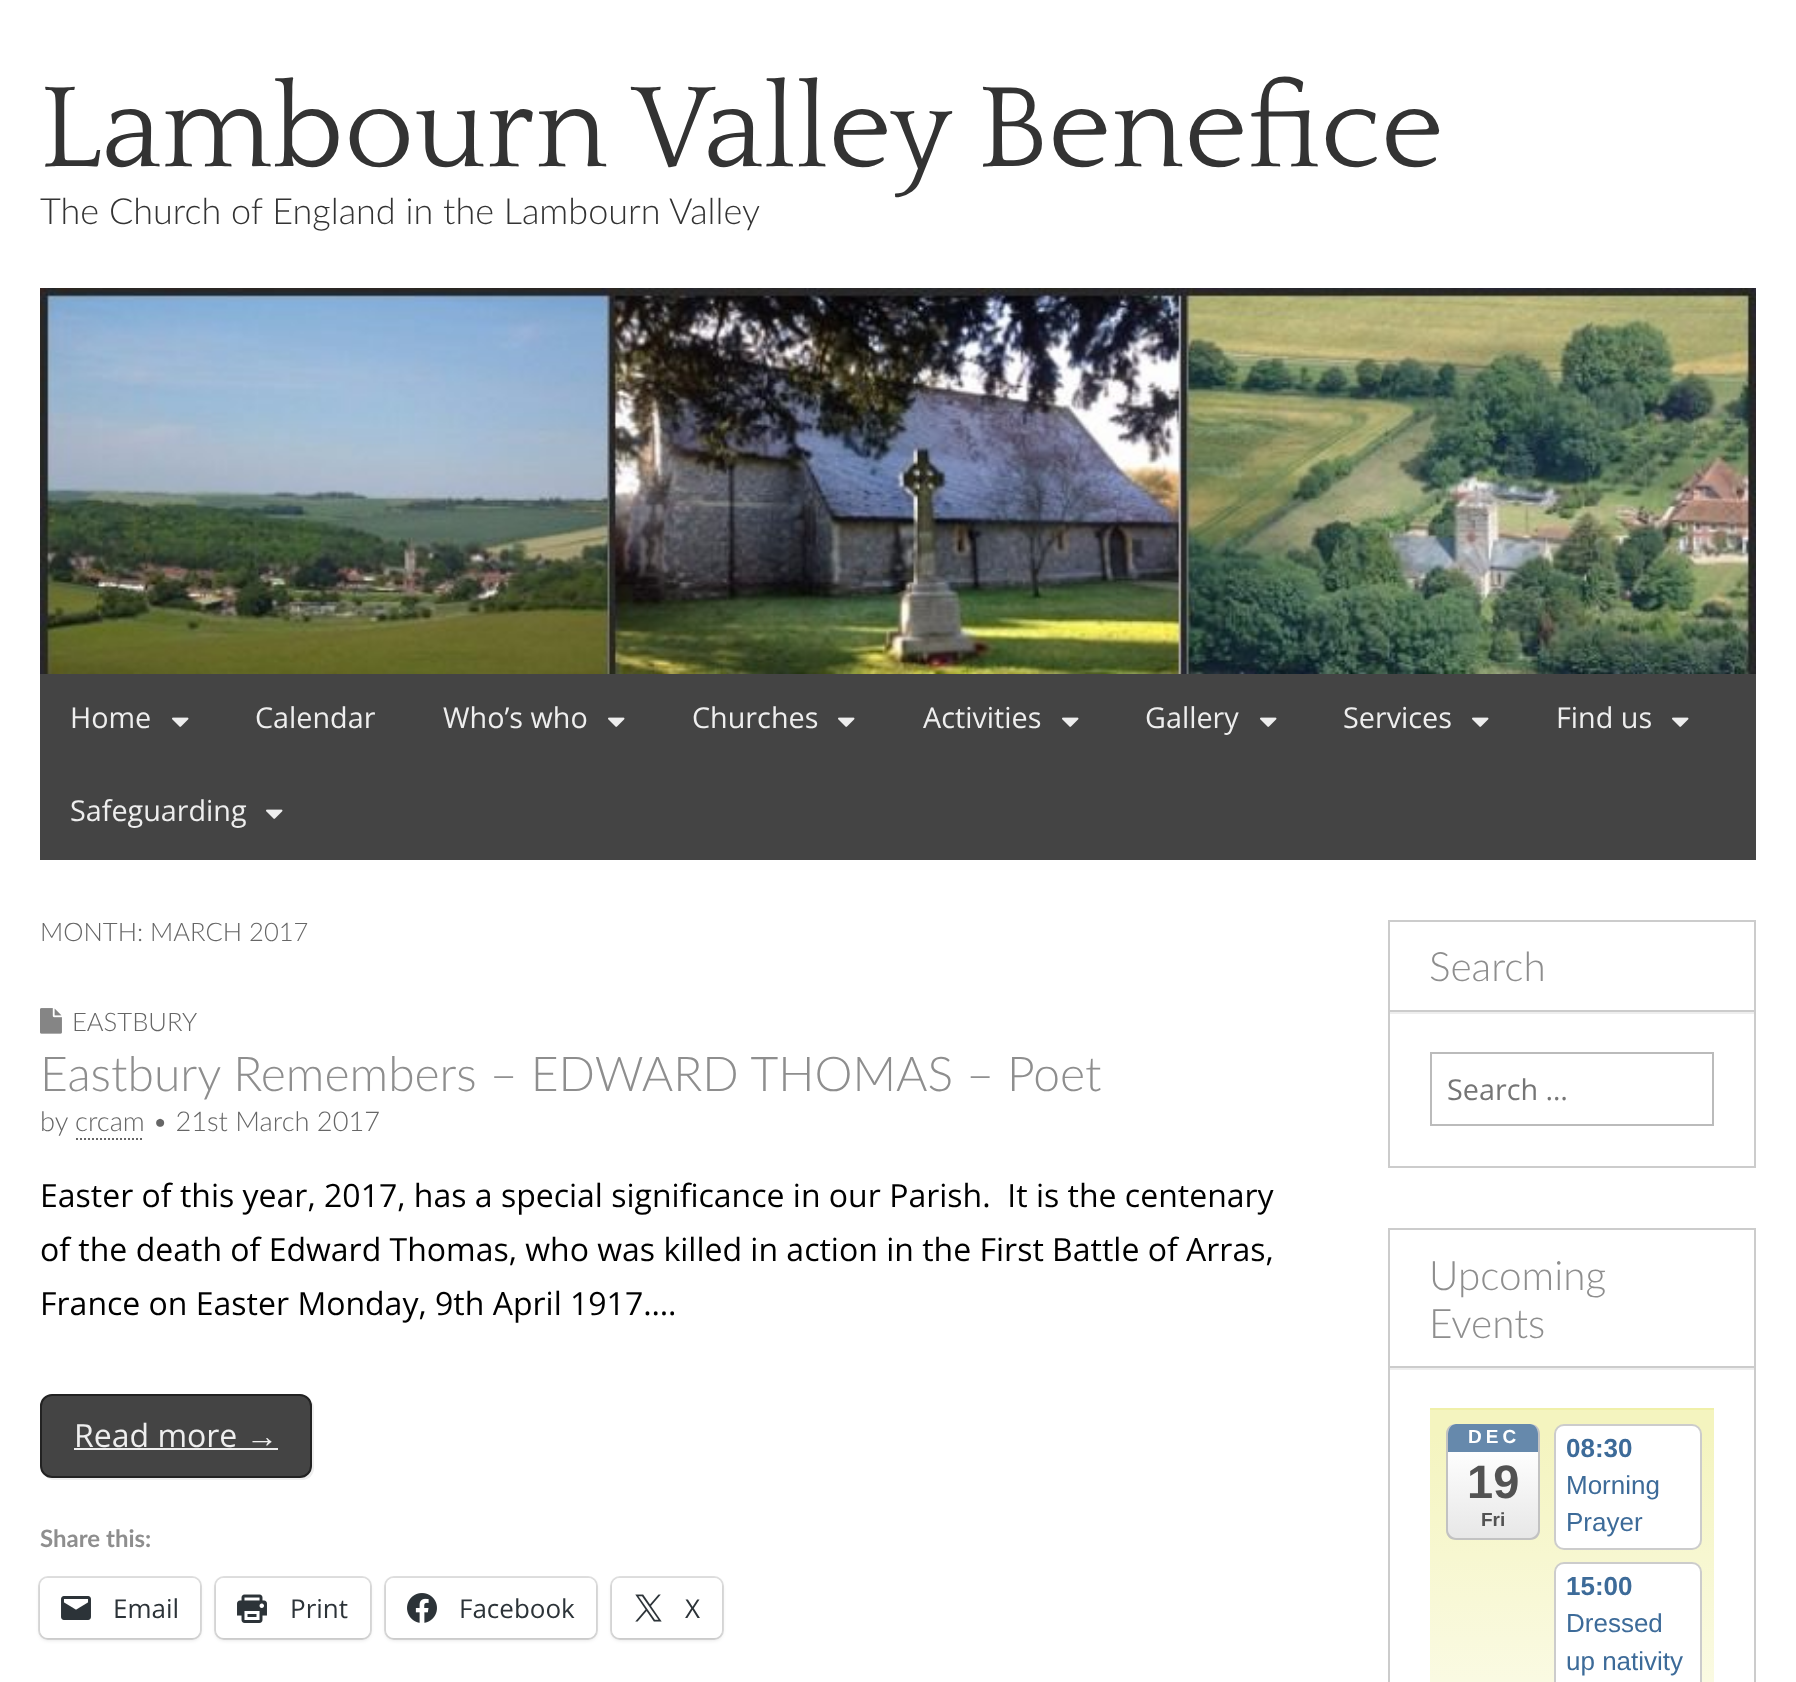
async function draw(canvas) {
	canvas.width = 1796;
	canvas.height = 1682;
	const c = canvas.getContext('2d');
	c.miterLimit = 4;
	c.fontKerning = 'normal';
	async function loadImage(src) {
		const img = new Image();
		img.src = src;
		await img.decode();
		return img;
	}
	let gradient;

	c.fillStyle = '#fff';
	c.fillRect(0, 0, 1796, 1682);
	c.font = '120px Quattrocento';
	c.fillStyle = '#333';
	c.fillText('Lambourn Valley Benefice', 40, 166);
	c.font = '300 36px Lato';
	c.fillText('The Church of England in the Lambourn Valley', 40, 224);
	c.drawImage(await loadImage('img1.png'), 40, 288, 1716, 386);
	c.fillStyle = '#444';
	c.fillRect(40, 674, 1716, 186);
	c.font = '28.75px Open Sans';
	c.fillStyle = '#eee';
	c.fillText('Home', 70, 728);
	c.drawImage(await loadImage('img2.png'), 172, 717, 17, 10);
	c.fillText('Calendar', 255, 728);
	c.fillText('Who’s who', 443, 728);
	c.drawImage(await loadImage('img2.png'), 608, 717, 17, 10);
	c.fillText('Churches', 692, 728);
	c.drawImage(await loadImage('img2.png'), 838, 717, 17, 10);
	c.fillText('Activities', 923, 728);
	c.drawImage(await loadImage('img2.png'), 1062, 717, 17, 10);
	c.fillText('Gallery', 1145, 728);
	c.drawImage(await loadImage('img2.png'), 1260, 717, 17, 10);
	c.fillText('Services', 1343, 728);
	c.drawImage(await loadImage('img2.png'), 1472, 717, 17, 10);
	c.fillText('Find us', 1556, 728);
	c.drawImage(await loadImage('img2.png'), 1672, 717, 17, 10);
	c.fillText('Safeguarding', 70, 821);
	c.drawImage(await loadImage('img2.png'), 266, 809, 17, 10);
	c.font = '300 25.6px Lato';
	c.fillStyle = '#666';
	c.fillText('MONTH: MARCH 2017', 40, 941);
	c.drawImage(await loadImage('img3.png'), 40, 1008, 22, 26);
	c.fillText('EASTBURY', 72, 1031);
	c.font = '300 48px Lato';
	c.fillStyle = '#8e8e8e';
	c.fillText('Eastbury Remembers – EDWARD THOMAS – Poet', 40, 1091);
	c.font = '300 27.25px Lato';
	c.fillStyle = '#666';
	c.fillText('by crcam • 21st March 2017', 40, 1131);
	c.beginPath();
	c.moveTo(76, 1139);
	c.lineTo(144, 1139);
	c.strokeStyle = '#666';
	c.lineWidth = 2;
	c.setLineDash([2, 2]);
	c.stroke();
	c.font = '32px Open Sans';
	c.fillStyle = '#000';
	for (const [text, x, y] of [
		['Easter of this year, 2017, has a special significance in our Parish.  It is the centenary', 40, 1207],
		['of the death of Edward Thomas, who was killed in action in the First Battle of Arras,', 40, 1261],
		['France on Easter Monday, 9th April 1917.…', 40, 1315],
	]) {
		c.fillText(text, x, y);
	}
	c.fillStyle = '#eee';
	c.beginPath();
	c.moveTo(45, 1475);
	c.bezierCurveTo(47, 1478, 50, 1480, 54, 1480);
	c.lineTo(302, 1480);
	c.bezierCurveTo(309, 1480, 314, 1475, 314, 1468);
	c.lineTo(314, 1408);
	c.bezierCurveTo(314, 1404, 312, 1401, 309, 1399);
	c.bezierCurveTo(311, 1401, 312, 1403, 312, 1406);
	c.lineTo(312, 1466);
	c.bezierCurveTo(312, 1473, 307, 1478, 300, 1478);
	c.lineTo(52, 1478);
	c.bezierCurveTo(49, 1478, 47, 1477, 45, 1475);
	c.closePath();
	c.fill();
	c.fillStyle = '#444';
	c.beginPath();
	c.roundRect(41, 1395, 270, 82, 11);
	c.fill();
	c.strokeStyle = '#222';
	c.setLineDash([]);
	c.stroke();
	c.fillStyle = '#eee';
	c.fillText('Read more', 74, 1447);
	c.font = '32px Liberation Serif';
	c.fillText('→', 246, 1447);
	c.fillRect(74, 1448, 204, 2);
	c.font = 'bold 24px Lato';
	c.fillStyle = '#8e8e8e';
	c.fillText('Share this:', 40, 1547);
	c.beginPath();
	c.roundRect(39, 1577, 162, 62, 9);
	c.strokeStyle = '#e0e0e0';
	c.stroke();
	c.fillStyle = '#0000001f';
	c.filter = 'blur(2px)';
	c.beginPath();
	c.roundRect(40, 1580, 160, 60, 8);
	c.fill();
	c.filter = 'none';
	c.fillStyle = '#fff';
	c.beginPath();
	c.roundRect(40, 1578, 160, 60, 8);
	c.fill();
	c.drawImage(await loadImage('img4.png'), 61, 1596, 30, 24);
	c.font = '26px Open Sans';
	c.fillStyle = '#2c3338';
	c.fillText('Email', 113, 1618);
	c.beginPath();
	c.roundRect(215, 1577, 156, 62, 9);
	c.stroke();
	c.fillStyle = '#0000001f';
	c.filter = 'blur(2px)';
	c.beginPath();
	c.roundRect(216, 1580, 154, 60, 8);
	c.fill();
	c.filter = 'none';
	c.fillStyle = '#fff';
	c.beginPath();
	c.roundRect(216, 1578, 154, 60, 8);
	c.fill();
	c.drawImage(await loadImage('img5.png'), 237, 1594, 30, 29);
	c.fillStyle = '#2c3338';
	c.fillText('Print', 290, 1618);
	c.beginPath();
	c.roundRect(385, 1577, 212, 62, 9);
	c.stroke();
	c.fillStyle = '#0000001f';
	c.filter = 'blur(2px)';
	c.beginPath();
	c.roundRect(386, 1580, 210, 60, 8);
	c.fill();
	c.filter = 'none';
	c.fillStyle = '#fff';
	c.beginPath();
	c.roundRect(386, 1578, 210, 60, 8);
	c.fill();
	c.drawImage(await loadImage('img6.png'), 407, 1593, 30, 30);
	c.fillStyle = '#2c3338';
	c.fillText('Facebook', 459, 1618);
	c.beginPath();
	c.roundRect(611, 1577, 112, 62, 9);
	c.stroke();
	c.fillStyle = '#0000001f';
	c.filter = 'blur(2px)';
	c.beginPath();
	c.roundRect(612, 1580, 110, 60, 8);
	c.fill();
	c.filter = 'none';
	c.fillStyle = '#fff';
	c.beginPath();
	c.roundRect(612, 1578, 110, 60, 8);
	c.fill();
	c.drawImage(await loadImage('img7.png'), 635, 1594, 27, 28);
	c.fillStyle = '#2c3338';
	c.fillText('X', 685, 1618);
	c.strokeStyle = '#ccc';
	c.strokeRect(1389, 921, 366, 246);
	c.fillStyle = '#eee';
	c.fillRect(1390, 1012, 364, 2);
	c.fillStyle = '#ccc';
	c.fillRect(1390, 1010, 364, 2);
	c.font = '300 40.5px Lato';
	c.fillStyle = '#8e8e8e';
	c.fillText('Search', 1429, 981);
	c.strokeStyle = '#bbb';
	c.strokeRect(1431, 1053, 282, 72);
	c.font = '28.75px Open Sans';
	c.fillStyle = '#757575';
	c.fillText('Search …', 1447, 1100);
	c.strokeStyle = '#ccc';
	c.strokeRect(1389, 1229, 366, 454);
	c.fillStyle = '#eee';
	c.fillRect(1390, 1368, 364, 2);
	c.fillStyle = '#ccc';
	c.fillRect(1390, 1366, 364, 2);
	c.font = '300 40.5px Lato';
	c.fillStyle = '#8e8e8e';
	c.fillText('Upcoming', 1429, 1290);
	c.fillText('Events', 1429, 1338);
	gradient = c.createLinearGradient(1572, 1410, 1572, 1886);
	gradient.addColorStop(0, '#f4f4bf');
	gradient.addColorStop(0.05, '#f4f4bf');
	gradient.addColorStop(1, '#fff');
	c.fillStyle = gradient;
	c.fillRect(1430, 1410, 284, 272);
	c.fillStyle = '#f0f0a9';
	c.fillRect(1430, 1408, 284, 2);
	c.save();
	c.beginPath();
	c.roundRect(1446, 1424, 94, 116, 10);
	c.clip();
	gradient = c.createLinearGradient(1493, 1424, 1493, 1538);
	gradient.addColorStop(0, '#fff');
	gradient.addColorStop(0.21, '#fff');
	gradient.addColorStop(1, '#e7e7e7');
	c.fillStyle = gradient;
	c.fillRect(1448, 1424, 90, 114);
	c.restore();
	c.fillStyle = '#c2c2c2';
	c.beginPath();
	c.moveTo(1456, 1424);
	c.lineTo(1530, 1424);
	c.bezierCurveTo(1536, 1424, 1540, 1428, 1540, 1434);
	c.lineTo(1540, 1530);
	c.bezierCurveTo(1540, 1536, 1536, 1540, 1530, 1540);
	c.lineTo(1456, 1540);
	c.bezierCurveTo(1450, 1540, 1446, 1536, 1446, 1530);
	c.lineTo(1446, 1434);
	c.bezierCurveTo(1446, 1428, 1450, 1424, 1456, 1424);
	c.closePath();
	c.moveTo(1456, 1424);
	c.lineTo(1530, 1424);
	c.bezierCurveTo(1534, 1424, 1538, 1428, 1538, 1434);
	c.lineTo(1538, 1530);
	c.bezierCurveTo(1538, 1534, 1534, 1538, 1530, 1538);
	c.lineTo(1456, 1538);
	c.bezierCurveTo(1452, 1538, 1448, 1534, 1448, 1530);
	c.lineTo(1448, 1434);
	c.bezierCurveTo(1448, 1428, 1452, 1424, 1456, 1424);
	c.closePath();
	c.fill('evenodd');
	c.fillStyle = '#6689ac';
	c.beginPath();
	c.moveTo(1456, 1424);
	c.bezierCurveTo(1452, 1424, 1448, 1428, 1448, 1434);
	c.lineTo(1448, 1452);
	c.lineTo(1538, 1452);
	c.lineTo(1538, 1434);
	c.bezierCurveTo(1538, 1428, 1534, 1424, 1530, 1424);
	c.closePath();
	c.fill();
	c.letterSpacing = '4px';
	c.font = 'bold 19px Liberation Sans';
	c.fillStyle = '#fff';
	c.fillText('DEC', 1468, 1443);
	c.letterSpacing = '0px';
	c.font = 'bold 47px Liberation Sans';
	c.fillStyle = '#525252';
	c.fillText('19', 1467, 1498);
	c.font = 'bold 19px Liberation Sans';
	c.fillText('Fri', 1481, 1526);
	c.fillStyle = '#fff';
	c.beginPath();
	c.roundRect(1555, 1425, 146, 124, 9);
	c.fill();
	c.stroke();
	c.font = 'bold 26px Liberation Sans';
	c.fillStyle = '#3d6b99';
	c.fillText('08:30', 1566, 1457);
	c.font = '26px Liberation Sans';
	c.fillText('Morning', 1566, 1494);
	c.fillText('Prayer', 1566, 1531);
	c.fillStyle = '#fff';
	c.beginPath();
	c.roundRect(1555, 1563, 146, 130, 9);
	c.fill();
	c.stroke();
	c.font = 'bold 26px Liberation Sans';
	c.fillStyle = '#3d6b99';
	c.fillText('15:00', 1566, 1595);
	c.font = '26px Liberation Sans';
	c.fillText('Dressed', 1566, 1632);
	c.fillText('up nativity', 1566, 1670);
}

draw(document.querySelector('canvas'));
